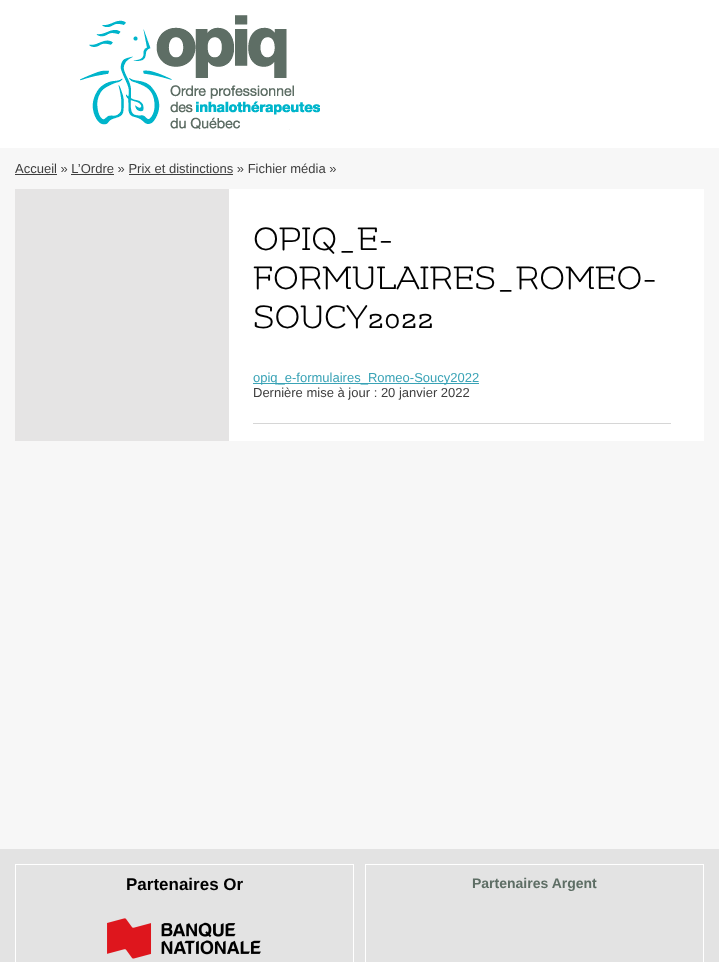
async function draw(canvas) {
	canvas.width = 719;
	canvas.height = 962;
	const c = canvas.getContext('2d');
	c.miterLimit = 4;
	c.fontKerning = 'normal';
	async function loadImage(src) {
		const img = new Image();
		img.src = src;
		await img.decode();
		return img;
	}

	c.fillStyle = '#fff';
	c.fillRect(0, 0, 719, 962);
	c.drawImage(await loadImage('img1.png'), 80, 15, 240, 115);
	c.fillStyle = '#f7f7f7';
	c.fillRect(0, 148, 719, 701);
	c.font = '13px Liberation Sans';
	c.fillStyle = '#3e3e3e';
	c.fillText('Accueil » L’Ordre » Prix et distinctions » Fichier média »', 15, 173);
	for (const [x, y, w, h, color] of [
		[15, 174, 42, 1, '#3e3e3e'],
		[71, 174, 43, 1, '#3e3e3e'],
		[129, 174, 104, 1, '#3e3e3e'],
		[229, 189, 475, 252, '#fff'],
		[15, 189, 214, 252, '#e5e4e4'],
		[253, 423, 418, 1, '#d6d6d6'],
	]) {
		c.fillStyle = color;
		c.fillRect(x, y, w, h);
	}
	c.font = '37px Flamenco';
	c.fillStyle = '#000';
	for (const [text, x, y] of [
		['OPIQ_E-', 253, 250],
		['FORMULAIRES_ROMEO-', 253, 289],
		['SOUCY2022', 253, 328],
	]) {
		c.fillText(text, x, y);
	}
	c.fillStyle = '#3aa3b6';
	c.fillRect(253, 383, 226, 1);
	c.font = '13px Liberation Sans';
	c.fillText('opiq_e-formulaires_Romeo-Soucy2022', 253, 382);
	c.fillStyle = '#3e3e3e';
	c.fillText('Dernière mise à jour : 20 janvier 2022', 253, 397);
	c.fillStyle = '#e3e3e3';
	c.fillRect(0, 849, 719, 113);
	c.strokeStyle = '#fff';
	c.strokeRect(15.5, 864.5, 338, 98);
	c.font = 'bold 17px Liberation Sans';
	c.fillStyle = '#000';
	c.fillText('Partenaires Or', 126, 890);
	c.drawImage(await loadImage('img2.png'), 107, 918, 154, 41);
	c.strokeRect(365.5, 864.5, 338, 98);
	c.font = 'bold 14px Liberation Sans';
	c.fillStyle = '#5e6e65';
	c.fillText('Partenaires Argent', 472, 888);
}

draw(document.querySelector('canvas'));
